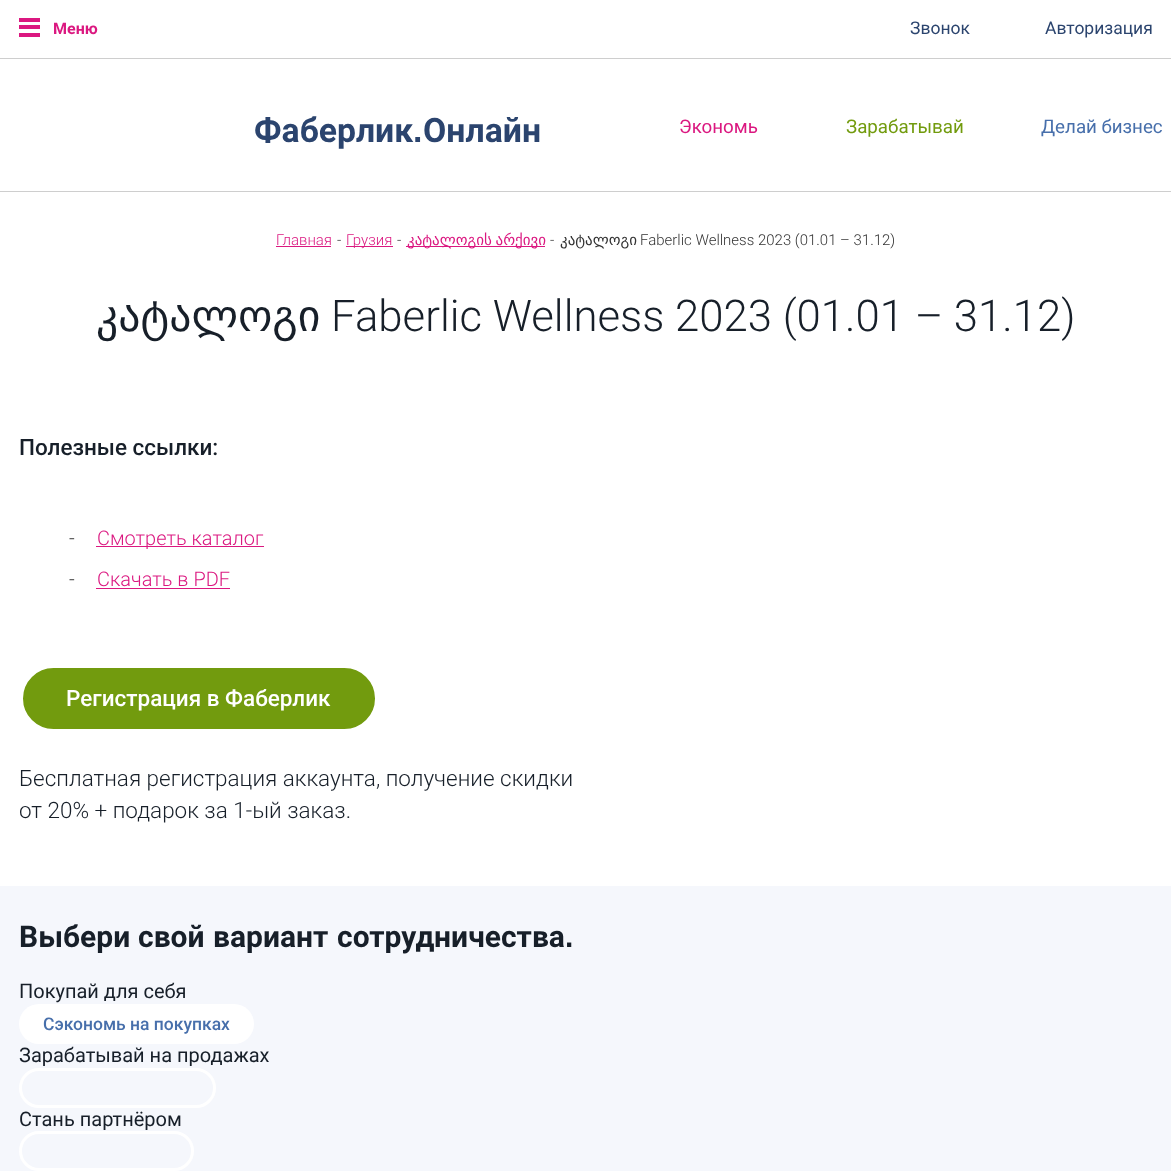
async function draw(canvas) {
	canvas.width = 1171;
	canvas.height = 1171;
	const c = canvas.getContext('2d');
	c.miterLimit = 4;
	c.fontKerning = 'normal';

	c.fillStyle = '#fff';
	c.fillRect(0, 0, 1171, 1171);
	for (const [x, y, w, h, color] of [
		[0, 58, 1171, 1, '#cecece'],
		[19, 18, 21, 4, '#db1880'],
		[19, 25, 21, 4, '#db1880'],
		[19, 33, 21, 4, '#db1880'],
	]) {
		c.fillStyle = color;
		c.fillRect(x, y, w, h);
	}
	c.font = 'bold 16px Roboto';
	c.fillText('Меню', 53, 34);
	c.font = '17.5px Roboto';
	c.fillStyle = '#2b446e';
	c.fillText('Звонок', 910, 34);
	c.fillText('Авторизация', 1045, 34);
	c.font = 'bold 33.75px Roboto';
	c.fillText('Фаберлик', 254, 142);
	c.font = 'bold 33.75px Liberation Sans';
	c.fillText('.', 413, 142);
	c.font = 'bold 33.75px Roboto';
	c.fillText('Онлайн', 423, 142);
	c.font = '18.75px Roboto';
	c.fillStyle = '#db1880';
	c.fillText('Экономь', 679, 133);
	c.fillStyle = '#729b0e';
	c.fillText('Зарабатывай', 846, 133);
	c.fillStyle = '#476fab';
	c.fillText('Делай бизнес', 1041, 133);
	c.fillStyle = '#cecece';
	c.fillRect(0, 191, 1171, 1);
	c.font = '300 15px Roboto';
	c.fillStyle = '#db1880';
	c.fillText('Главная', 276, 245);
	c.fillRect(276, 246, 55, 1);
	c.fillStyle = '#333';
	c.fillText('-', 337, 245);
	c.fillStyle = '#db1880';
	c.fillRect(346, 246, 47, 1);
	c.fillText('Грузия', 346, 245);
	c.fillStyle = '#333';
	c.fillText('-', 397, 245);
	c.fillStyle = '#db1880';
	c.fillRect(406, 246, 139, 1);
	c.wordSpacing = '-1px';
	c.font = '15px DejaVu Sans';
	c.fillText('კატალოგის არქივი', 407, 245);
	c.wordSpacing = '0px';
	c.font = '300 15px Roboto';
	c.fillStyle = '#333';
	c.fillText('-', 550, 245);
	c.font = '15px DejaVu Sans';
	c.fillText('კატალოგი', 560, 245);
	c.font = '300 15px Roboto';
	c.fillText('Faberlic Wellness 2023 (01.01 – 31.12)', 640, 245);
	c.font = '43.75px DejaVu Sans';
	c.fillStyle = '#171f29';
	c.fillText('კატალოგი', 96, 331);
	c.font = '300 43.75px Roboto';
	c.fillText('Faberlic Wellness 2023 (01.01 – 31.12)', 331, 331);
	c.font = '500 22.5px Roboto';
	c.fillText('Полезные ссылки:', 19, 455);
	c.font = '300 20px Roboto';
	c.fillStyle = '#333';
	c.fillText('-', 69, 545);
	c.fillStyle = '#db1880';
	c.fillRect(96, 546, 168, 1);
	c.fillText('Смотреть каталог', 97, 545);
	c.fillStyle = '#333';
	c.fillText('-', 69, 586);
	c.fillStyle = '#db1880';
	c.fillText('Скачать в PDF', 97, 586);
	c.fillRect(96, 588, 134, 1);
	c.fillStyle = '#729b0e';
	c.beginPath();
	c.roundRect(21, 666, 356, 65, 32.5);
	c.fill();
	c.strokeStyle = '#fff';
	c.lineWidth = 4;
	c.stroke();
	c.font = '500 22.5px Roboto';
	c.fillStyle = '#fff';
	c.fillText('Регистрация в Фаберлик', 66, 706);
	c.font = '300 22.5px Roboto';
	c.fillStyle = '#171f29';
	c.fillText('Бесплатная регистрация аккаунта, получение скидки', 19, 786);
	c.fillText('от 20% + подарок за 1-ый заказ.', 19, 818);
	c.fillStyle = '#f5f7fc';
	c.fillRect(0, 886, 1171, 285);
	c.font = 'bold 30px Roboto';
	c.fillStyle = '#171f29';
	for (const [text, x, y] of [
		['Выбери', 19, 947],
		['свой', 138, 947],
		['вариант', 213, 947],
		['сотрудничества', 337, 947],
	]) {
		c.fillText(text, x, y);
	}
	c.font = 'bold 30px Liberation Sans';
	c.fillText('.', 565, 947);
	c.font = '20px Roboto';
	c.fillText('Покупай для себя', 19, 998);
	c.fillStyle = '#fff';
	c.beginPath();
	c.roundRect(19, 1004, 235, 40, 20);
	c.fill();
	c.font = '500 17.5px Roboto';
	c.fillStyle = '#476fab';
	c.fillText('Сэкономь на покупках', 43, 1030);
	c.font = '20px Roboto';
	c.fillStyle = '#171f29';
	c.fillText('Зарабатывай на продажах', 19, 1062);
	c.beginPath();
	c.roundRect(20.5, 1069.5, 194, 37, 18.5);
	c.lineWidth = 3;
	c.stroke();
	c.fillText('Стань партнёром', 19, 1126);
	c.beginPath();
	c.roundRect(20.5, 1132.5, 172, 37, 18.5);
	c.stroke();
}

draw(document.querySelector('canvas'));
